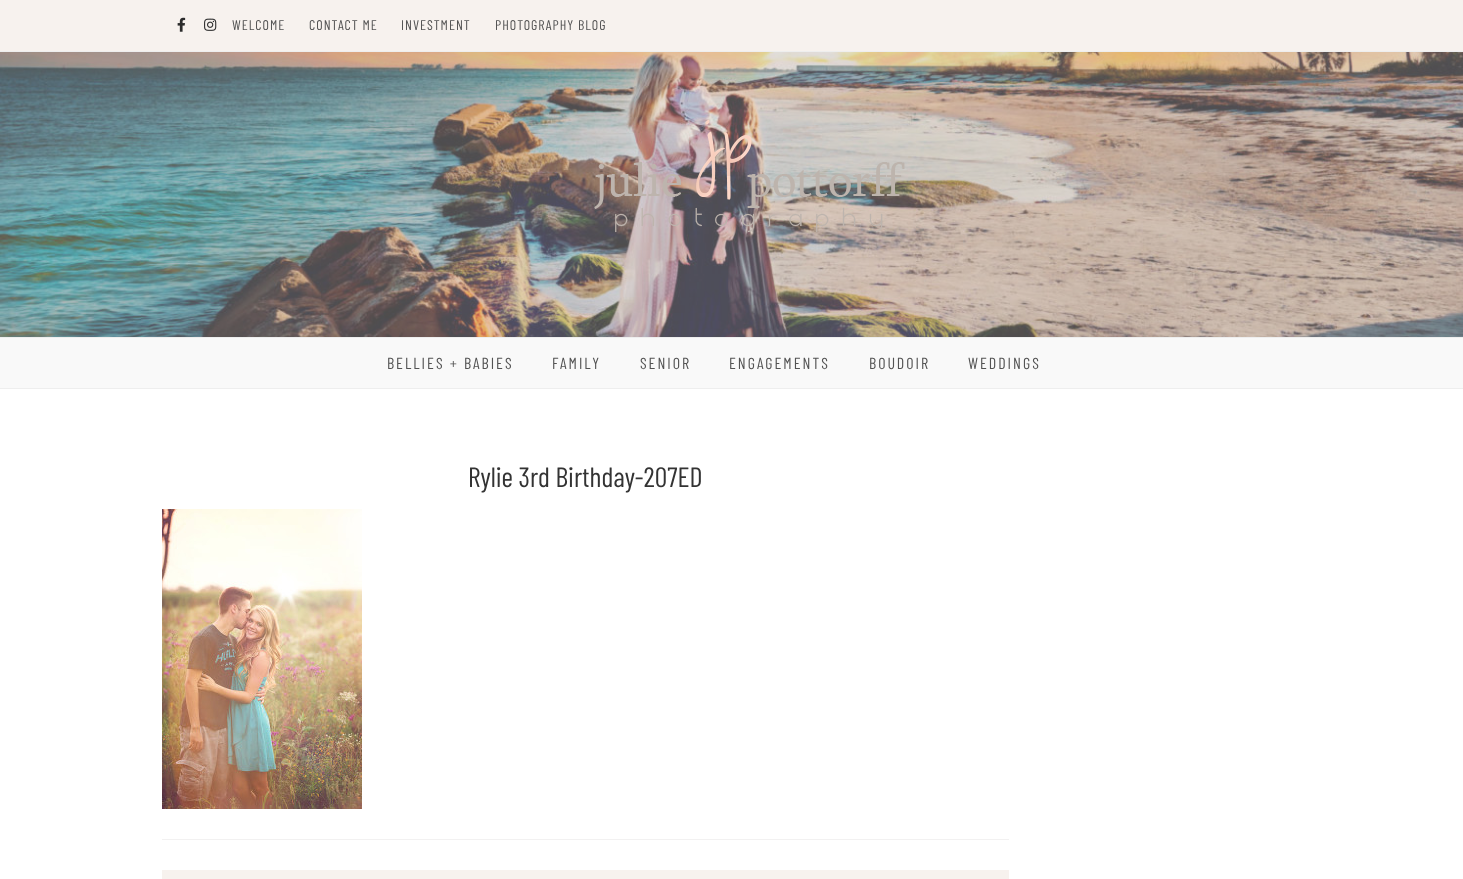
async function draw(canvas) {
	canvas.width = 1463;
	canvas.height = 879;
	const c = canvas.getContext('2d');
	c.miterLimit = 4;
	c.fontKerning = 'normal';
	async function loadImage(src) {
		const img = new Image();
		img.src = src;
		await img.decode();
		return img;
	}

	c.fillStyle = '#fff';
	c.fillRect(0, 0, 1463, 879);
	c.fillStyle = '#f7f2ee';
	c.fillRect(0, 0, 1463, 51);
	c.fillStyle = '#eee';
	c.fillRect(0, 51, 1463, 1);
	c.drawImage(await loadImage('img1.png'), 177, 17, 9, 15);
	c.drawImage(await loadImage('img2.png'), 204, 18, 13, 13);
	c.letterSpacing = '1px';
	c.font = '14px Barlow Condensed';
	c.fillStyle = '#535353';
	for (const [text, x, y] of [
		['WELCOME', 232, 30],
		['CONTACT ME', 309, 30],
		['INVESTMENT', 401, 30],
		['PHOTOGRAPHY BLOG', 495, 30],
	]) {
		c.fillText(text, x, y);
	}
	c.drawImage(await loadImage('img3.png'), 0, 52, 1463, 285);
	c.drawImage(await loadImage('img4.png'), 594, 119, 311, 114);
	for (const [x, y, w, h, color] of [
		[0, 338, 1463, 50, '#f9f9f9'],
		[0, 337, 1463, 1, '#eee'],
		[0, 388, 1463, 1, '#eee'],
	]) {
		c.fillStyle = color;
		c.fillRect(x, y, w, h);
	}
	c.letterSpacing = '2px';
	c.font = '16px Barlow Condensed';
	c.fillStyle = '#535353';
	for (const [text, x, y] of [
		['BELLIES + BABIES', 387, 369],
		['FAMILY', 552, 369],
		['SENIOR', 640, 369],
		['ENGAGEMENTS', 729, 369],
		['BOUDOIR', 869, 369],
		['WEDDINGS', 968, 369],
	]) {
		c.fillText(text, x, y);
	}
	c.fillStyle = '#f2f1f1';
	c.fillRect(162, 839, 847, 1);
	c.letterSpacing = '0px';
	c.font = '28px Barlow Condensed';
	c.fillStyle = '#333';
	c.fillText('Rylie 3rd Birthday-207ED', 468, 487);
	c.drawImage(await loadImage('img5.png'), 162, 509, 200, 300);
	c.fillStyle = '#f7f2ee';
	c.fillRect(162, 870, 847, 9);
}

draw(document.querySelector('canvas'));
